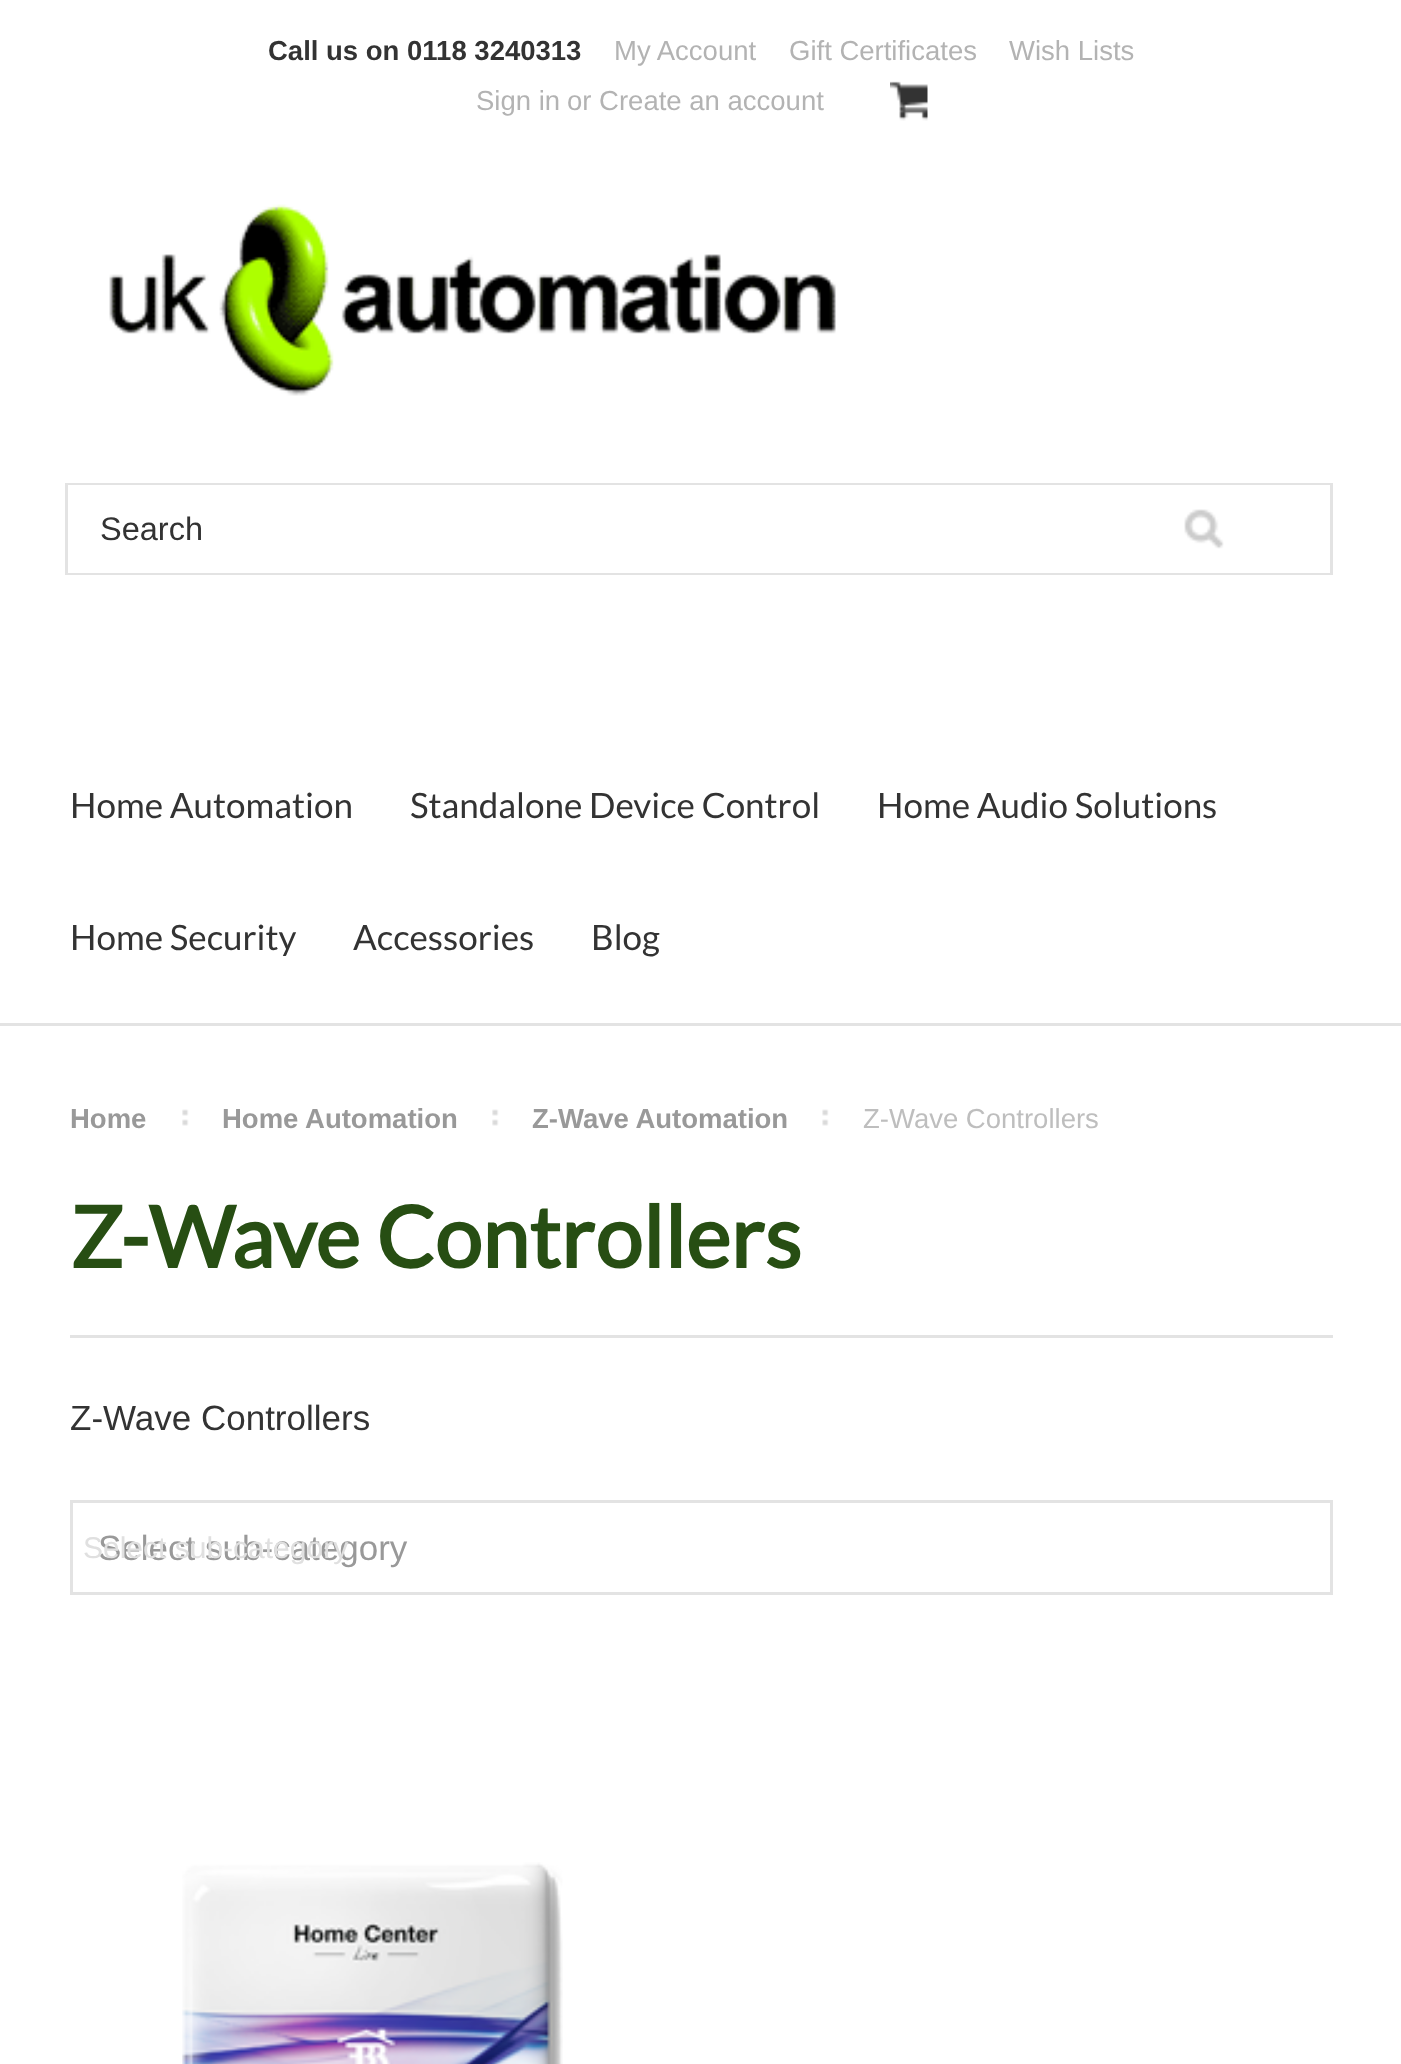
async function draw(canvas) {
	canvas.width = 1401;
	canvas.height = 2064;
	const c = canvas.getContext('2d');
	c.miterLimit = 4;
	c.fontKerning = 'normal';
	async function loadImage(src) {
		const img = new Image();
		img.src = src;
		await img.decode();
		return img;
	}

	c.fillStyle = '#fff';
	c.fillRect(0, 0, 1401, 2064);
	c.fillStyle = '#e3e3e3';
	c.fillRect(0, 1023, 1401, 3);
	c.font = 'bold 27.5px Liberation Sans';
	c.fillStyle = '#333';
	c.fillText('Call us on 0118 3240313', 268, 60);
	c.font = '27.5px Liberation Sans';
	c.fillStyle = '#b3b3b3';
	for (const [text, x, y] of [
		['My Account', 614, 60],
		['Gift Certificates', 789, 60],
		['Wish Lists', 1009, 60],
		['Sign in', 476, 110],
		['or Create an account', 567, 110],
	]) {
		c.fillText(text, x, y);
	}
	c.drawImage(await loadImage('img1.png'), 890, 81, 38, 40);
	c.drawImage(await loadImage('img2.png'), 109, 204, 727, 192);
	c.strokeStyle = '#e3e3e3';
	c.lineWidth = 3;
	c.strokeRect(66.5, 484.5, 1265, 89);
	c.fillStyle = '#fff';
	c.fillRect(68, 485, 1262, 88);
	c.font = '32.5px Liberation Sans';
	c.fillStyle = '#333';
	c.fillText('Search', 100, 540);
	c.drawImage(await loadImage('img3.png'), 1184, 509, 40, 40);
	c.font = '35px Lato';
	for (const [text, x, y] of [
		['Home Automation', 70, 818],
		['Standalone Device Control', 410, 818],
		['Home Audio Solutions', 877, 818],
		['Home Security', 70, 950],
		['Accessories', 353, 950],
		['Blog', 591, 950],
	]) {
		c.fillText(text, x, y);
	}
	c.drawImage(await loadImage('img4.png'), 182, 1109, 7, 17);
	c.font = 'bold 27.5px Liberation Sans';
	c.fillStyle = '#999';
	c.fillText('Home', 70, 1128);
	c.drawImage(await loadImage('img4.png'), 492, 1109, 7, 17);
	c.fillText('Home Automation', 222, 1128);
	c.drawImage(await loadImage('img5.png'), 822, 1109, 7, 17);
	c.fillText('Z-Wave Automation', 532, 1128);
	c.font = '27.5px Liberation Sans';
	c.fillStyle = '#bebebe';
	c.fillText('Z-Wave Controllers', 863, 1128);
	c.fillStyle = '#e3e3e3';
	c.fillRect(70, 1335, 1263, 3);
	c.font = 'bold 85px Lato';
	c.fillStyle = '#274e13';
	c.fillText('Z-Wave Controllers', 70, 1268);
	c.font = '35px Liberation Sans';
	c.fillStyle = '#333';
	c.fillText('Z-Wave Controllers', 70, 1430);
	c.strokeRect(71.5, 1501.5, 1260, 92);
	c.fillStyle = '#999';
	c.fillText('Select sub-category', 98, 1560);
	c.font = '30px Liberation Sans';
	c.fillStyle = '#e0e0e0';
	c.fillText('Select sub-category', 83, 1558);
	c.drawImage(await loadImage('img6.png'), 182, 1862, 381, 202);
}

draw(document.querySelector('canvas'));
